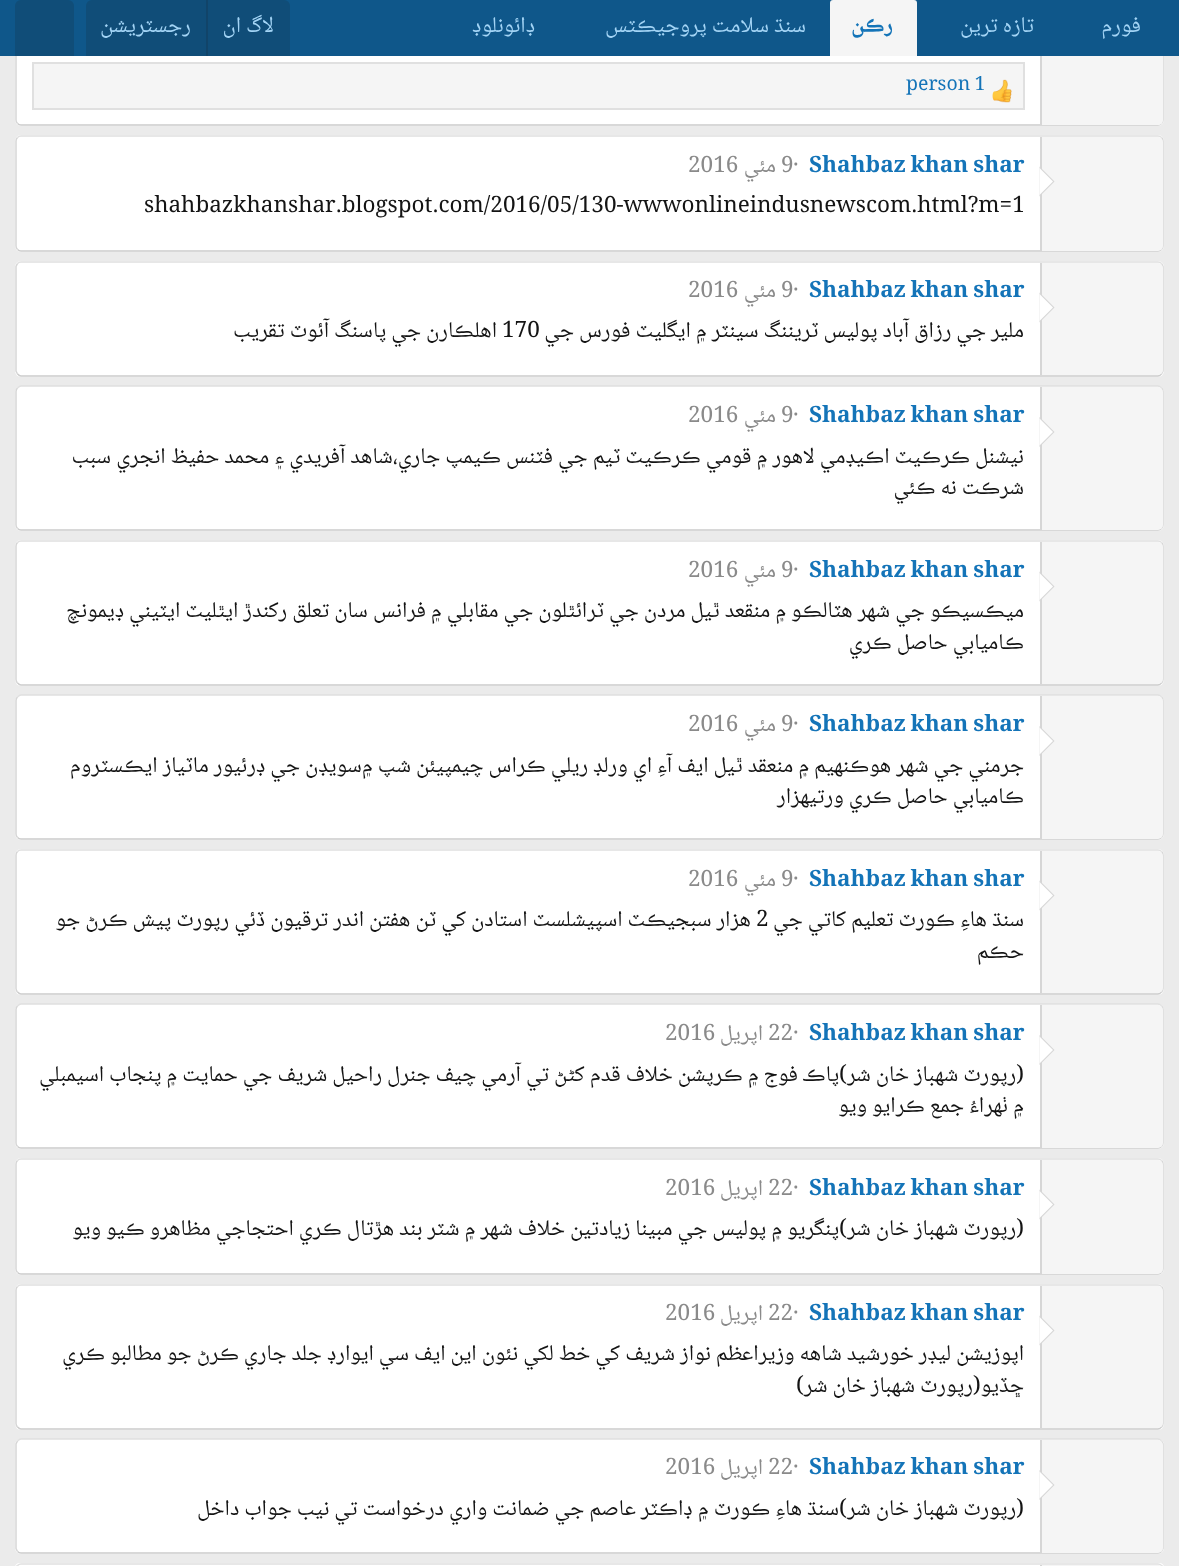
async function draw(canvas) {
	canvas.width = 1179;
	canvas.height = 1566;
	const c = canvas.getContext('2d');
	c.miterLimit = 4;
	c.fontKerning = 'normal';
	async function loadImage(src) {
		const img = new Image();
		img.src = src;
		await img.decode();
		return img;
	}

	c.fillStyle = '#ebebeb';
	c.fillRect(0, 0, 1179, 1566);
	c.fillStyle = '#fff';
	c.beginPath();
	c.roundRect(15, -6, 1149, 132, 6);
	c.fill();
	c.beginPath();
	c.moveTo(1161.5, -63.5);
	c.bezierCurveTo(1162.5, -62.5, 1163, -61.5, 1163, -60);
	c.lineTo(1163, 120);
	c.bezierCurveTo(1163, 121.5, 1162.5, 122.5, 1161.5, 123.5);
	c.strokeStyle = '#d6d6d6';
	c.lineWidth = 1.5;
	c.stroke();
	c.beginPath();
	c.moveTo(1161.5, 123.5);
	c.bezierCurveTo(1160.5, 124.5, 1159.5, 125, 1158, 125);
	c.lineTo(21, 125);
	c.bezierCurveTo(19.5, 125, 18.5, 124.5, 17.5, 123.5);
	c.strokeStyle = '#ccc';
	c.stroke();
	c.beginPath();
	c.moveTo(17.5, 123.5);
	c.bezierCurveTo(16.5, 122.5, 16, 121.5, 16, 120);
	c.lineTo(16, -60);
	c.bezierCurveTo(16, -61.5, 16.5, -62.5, 17.5, -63.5);
	c.strokeStyle = '#d6d6d6';
	c.stroke();
	c.fillStyle = '#f5f5f5';
	c.beginPath();
	c.moveTo(1040, -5);
	c.lineTo(1158, -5);
	c.bezierCurveTo(1161, -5, 1163, -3, 1163, 0);
	c.lineTo(1163, 120);
	c.bezierCurveTo(1163, 123, 1161, 125, 1158, 125);
	c.lineTo(1040, 125);
	c.closePath();
	c.fill();
	c.fillStyle = '#0f578a';
	c.fillRect(0, 0, 1179, 56);
	c.direction = 'rtl';
	c.font = '22.5px Noto Naskh Arabic';
	c.fillStyle = '#a3d4f5';
	c.fillText('فورم', 1141, 32);
	c.fillText('تازہ ترين', 1034, 32);
	c.fillStyle = '#f5f5f5';
	c.beginPath();
	c.roundRect(830, 0, 87, 56, [3, 3, 0, 0]);
	c.fill();
	c.font = 'bold 22.5px Noto Naskh Arabic';
	c.fillStyle = '#1474b8';
	c.fillText('رڪن', 893, 32);
	c.font = '22.5px Noto Naskh Arabic';
	c.fillStyle = '#a3d4f5';
	c.fillText('سنڌ سلامت پروجيڪٽس', 806, 32);
	c.fillText('ڊائونلوڊ', 535, 32);
	c.fillStyle = '#104d78';
	c.beginPath();
	c.roundRect(86, 0, 204, 56, [6, 6, 0, 0]);
	c.fill();
	c.fillStyle = '#a3d4f5';
	c.fillText('لاگ ان', 274, 32);
	c.fillStyle = '#114469';
	c.fillRect(206, 0, 2, 56);
	c.fillStyle = '#a3d4f5';
	c.fillText('رجسٽريشن', 191, 32);
	c.fillStyle = '#104d78';
	c.beginPath();
	c.roundRect(15, 0, 59, 56, [6, 6, 0, 0]);
	c.fill();
	c.fillStyle = '#d6d6d6';
	c.fillRect(1040, 56, 2, 69);
	c.fillStyle = '#f5f5f5';
	c.beginPath();
	c.rect(33, 63, 991, 46);
	c.fill();
	c.strokeStyle = '#e0e0e0';
	c.lineWidth = 2;
	c.stroke();
	c.drawImage(await loadImage('img1.png'), 992, 79, 20, 24);
	c.direction = 'ltr';
	c.font = '19.5px Noto Naskh Arabic';
	c.fillStyle = '#1474b8';
	c.fillText('person 1', 906, 90);
	c.fillStyle = '#fff';
	c.beginPath();
	c.roundRect(15, 135, 1149, 117, 6);
	c.fill();
	c.beginPath();
	c.moveTo(17.5, 137.5);
	c.bezierCurveTo(18.5, 136.5, 19.5, 136, 21, 136);
	c.lineTo(1158, 136);
	c.bezierCurveTo(1159.5, 136, 1160.5, 136.5, 1161.5, 137.5);
	c.lineWidth = 1.5;
	c.stroke();
	c.beginPath();
	c.moveTo(1161.5, 137.5);
	c.bezierCurveTo(1162.5, 138.5, 1163, 139.5, 1163, 141);
	c.lineTo(1163, 246);
	c.bezierCurveTo(1163, 247.5, 1162.5, 248.5, 1161.5, 249.5);
	c.strokeStyle = '#d6d6d6';
	c.stroke();
	c.beginPath();
	c.moveTo(1161.5, 249.5);
	c.bezierCurveTo(1160.5, 250.5, 1159.5, 251, 1158, 251);
	c.lineTo(21, 251);
	c.bezierCurveTo(19.5, 251, 18.5, 250.5, 17.5, 249.5);
	c.strokeStyle = '#ccc';
	c.stroke();
	c.beginPath();
	c.moveTo(17.5, 249.5);
	c.bezierCurveTo(16.5, 248.5, 16, 247.5, 16, 246);
	c.lineTo(16, 141);
	c.bezierCurveTo(16, 139.5, 16.5, 138.5, 17.5, 137.5);
	c.strokeStyle = '#d6d6d6';
	c.stroke();
	c.fillStyle = '#f5f5f5';
	c.beginPath();
	c.roundRect(1040, 137, 123, 114, [0, 5, 5, 0]);
	c.fill();
	c.fillStyle = '#d6d6d6';
	c.fillRect(1040, 137, 2, 114);
	c.beginPath();
	c.moveTo(1039.5, 196.5);
	c.lineTo(1039.5, 166.5);
	c.lineTo(1054.5, 181.5);
	c.closePath();
	c.fill();
	c.fillStyle = '#fff';
	c.beginPath();
	c.moveTo(1039.5, 195);
	c.lineTo(1039.5, 168);
	c.lineTo(1053, 181.5);
	c.closePath();
	c.fill();
	c.font = 'bold 22.5px Noto Naskh Arabic';
	c.fillStyle = '#1474b8';
	c.fillText('Shahbaz khan shar', 809, 172);
	c.font = '22.5px Noto Naskh Arabic';
	c.fillStyle = '#8a8a8a';
	c.fillText('·', 793, 172);
	c.fillText('9', 781, 172);
	c.direction = 'rtl';
	c.fillText('مئي', 776, 172);
	c.direction = 'ltr';
	c.fillText('2016', 688, 172);
	c.fillStyle = '#141414';
	c.fillText('shahbazkhanshar.blogspot.com/2016/05/130-wwwonlineindusnewscom.html?m=1', 144, 212);
	c.fillStyle = '#fff';
	c.beginPath();
	c.roundRect(15, 261, 1149, 116, 6);
	c.fill();
	c.beginPath();
	c.moveTo(17.5, 263.5);
	c.bezierCurveTo(18.5, 262.5, 19.5, 262, 21, 262);
	c.lineTo(1158, 262);
	c.bezierCurveTo(1159.5, 262, 1160.5, 262.5, 1161.5, 263.5);
	c.strokeStyle = '#e0e0e0';
	c.stroke();
	c.beginPath();
	c.moveTo(1161.5, 263.5);
	c.lineTo(1163, 266.5);
	c.lineTo(1163, 371);
	c.lineTo(1161.5, 374);
	c.strokeStyle = '#d6d6d6';
	c.stroke();
	c.beginPath();
	c.moveTo(1161.5, 374);
	c.bezierCurveTo(1160.5, 375, 1159.5, 376, 1158, 376);
	c.lineTo(21, 376);
	c.bezierCurveTo(19.5, 376, 18.5, 375, 17.5, 374);
	c.strokeStyle = '#ccc';
	c.stroke();
	c.beginPath();
	c.moveTo(17.5, 374);
	c.lineTo(16, 371);
	c.lineTo(16, 266.5);
	c.lineTo(17.5, 263.5);
	c.strokeStyle = '#d6d6d6';
	c.stroke();
	c.fillStyle = '#f5f5f5';
	c.beginPath();
	c.roundRect(1040, 263, 123, 112, [0, 5, 5, 0]);
	c.fill();
	c.fillStyle = '#d6d6d6';
	c.fillRect(1040, 263, 2, 112);
	c.beginPath();
	c.moveTo(1039.5, 322.5);
	c.lineTo(1039.5, 292.5);
	c.lineTo(1054.5, 307.5);
	c.closePath();
	c.fill();
	c.fillStyle = '#fff';
	c.beginPath();
	c.moveTo(1039.5, 321);
	c.lineTo(1039.5, 294);
	c.lineTo(1053, 307.5);
	c.closePath();
	c.fill();
	c.font = 'bold 22.5px Noto Naskh Arabic';
	c.fillStyle = '#1474b8';
	c.fillText('Shahbaz khan shar', 809, 297);
	c.font = '22.5px Noto Naskh Arabic';
	c.fillStyle = '#8a8a8a';
	c.fillText('·', 793, 297);
	c.fillText('9', 781, 297);
	c.direction = 'rtl';
	c.fillText('مئي', 776, 297);
	c.direction = 'ltr';
	c.fillText('2016', 688, 297);
	c.direction = 'rtl';
	c.fillStyle = '#141414';
	c.fillText('ملير جي رزاق آباد پوليس ٽريننگ سينٽر ۾ ايگليٽ فورس جي', 1024, 337);
	c.direction = 'ltr';
	c.fillText('170', 502, 337);
	c.direction = 'rtl';
	c.fillText('اهلڪارن جي پاسنگ آئوٽ تقريب', 497, 337);
	c.fillStyle = '#fff';
	c.beginPath();
	c.roundRect(15, 386, 1149, 145, 6);
	c.fill();
	c.beginPath();
	c.moveTo(17.5, 388);
	c.bezierCurveTo(18.5, 387, 19.5, 386, 21, 386);
	c.lineTo(1158, 386);
	c.bezierCurveTo(1159.5, 386, 1160.5, 387, 1161.5, 388);
	c.strokeStyle = '#e0e0e0';
	c.stroke();
	c.beginPath();
	c.moveTo(1161.5, 388);
	c.bezierCurveTo(1162.5, 389, 1163, 390, 1163, 391.5);
	c.lineTo(1163, 525);
	c.bezierCurveTo(1163, 526.5, 1162.5, 527.5, 1161.5, 528.5);
	c.strokeStyle = '#d6d6d6';
	c.stroke();
	c.beginPath();
	c.moveTo(1161.5, 528.5);
	c.bezierCurveTo(1160.5, 529.5, 1159.5, 530, 1158, 530);
	c.lineTo(21, 530);
	c.bezierCurveTo(19.5, 530, 18.5, 529.5, 17.5, 528.5);
	c.strokeStyle = '#ccc';
	c.stroke();
	c.beginPath();
	c.moveTo(17.5, 528.5);
	c.bezierCurveTo(16.5, 527.5, 16, 526.5, 16, 525);
	c.lineTo(16, 391.5);
	c.bezierCurveTo(16, 390, 16.5, 389, 17.5, 388);
	c.strokeStyle = '#d6d6d6';
	c.stroke();
	c.fillStyle = '#f5f5f5';
	c.beginPath();
	c.roundRect(1040, 387, 123, 143, [0, 5, 5, 0]);
	c.fill();
	c.fillStyle = '#d6d6d6';
	c.fillRect(1040, 387, 2, 143);
	c.beginPath();
	c.moveTo(1039.5, 447);
	c.lineTo(1039.5, 417);
	c.lineTo(1054.5, 432);
	c.closePath();
	c.fill();
	c.fillStyle = '#fff';
	c.beginPath();
	c.moveTo(1039.5, 445.5);
	c.lineTo(1039.5, 418.5);
	c.lineTo(1053, 432);
	c.closePath();
	c.fill();
	c.direction = 'ltr';
	c.font = 'bold 22.5px Noto Naskh Arabic';
	c.fillStyle = '#1474b8';
	c.fillText('Shahbaz khan shar', 809, 422);
	c.font = '22.5px Noto Naskh Arabic';
	c.fillStyle = '#8a8a8a';
	c.fillText('·', 793, 422);
	c.fillText('9', 781, 422);
	c.direction = 'rtl';
	c.fillText('مئي', 776, 422);
	c.direction = 'ltr';
	c.fillText('2016', 688, 422);
	c.direction = 'rtl';
	c.fillStyle = '#141414';
	c.fillText('نيشنل ڪرڪيٽ اڪيڊمي لاهور ۾ قومي ڪرڪيٽ ٽيم جي فٽنس ڪيمپ جاري،شاهد آفريدي ۽ محمد حفيظ انجري سبب', 1024, 463);
	c.fillText('شرڪت نه ڪئي', 1024, 494);
	c.fillStyle = '#fff';
	c.beginPath();
	c.roundRect(15, 540, 1149, 146, 6);
	c.fill();
	c.beginPath();
	c.moveTo(17.5, 542.5);
	c.bezierCurveTo(18.5, 541.5, 19.5, 541, 21, 541);
	c.lineTo(1158, 541);
	c.bezierCurveTo(1159.5, 541, 1160.5, 541.5, 1161.5, 542.5);
	c.strokeStyle = '#e0e0e0';
	c.stroke();
	c.beginPath();
	c.moveTo(1161.5, 542.5);
	c.bezierCurveTo(1162.5, 543.5, 1163, 544.5, 1163, 546);
	c.lineTo(1163, 679.5);
	c.bezierCurveTo(1163, 681, 1162.5, 682, 1161.5, 683);
	c.strokeStyle = '#d6d6d6';
	c.stroke();
	c.beginPath();
	c.moveTo(1161.5, 683);
	c.bezierCurveTo(1160.5, 684, 1159.5, 685, 1158, 685);
	c.lineTo(21, 685);
	c.bezierCurveTo(19.5, 685, 18.5, 684, 17.5, 683);
	c.strokeStyle = '#ccc';
	c.stroke();
	c.beginPath();
	c.moveTo(17.5, 683);
	c.bezierCurveTo(16.5, 682, 16, 681, 16, 679.5);
	c.lineTo(16, 546);
	c.bezierCurveTo(16, 544.5, 16.5, 543.5, 17.5, 542.5);
	c.strokeStyle = '#d6d6d6';
	c.stroke();
	c.fillStyle = '#f5f5f5';
	c.beginPath();
	c.roundRect(1040, 542, 123, 142, [0, 5, 5, 0]);
	c.fill();
	c.fillStyle = '#d6d6d6';
	c.fillRect(1040, 542, 2, 142);
	c.beginPath();
	c.moveTo(1039.5, 601.5);
	c.lineTo(1039.5, 571.5);
	c.lineTo(1054.5, 586.5);
	c.closePath();
	c.fill();
	c.fillStyle = '#fff';
	c.beginPath();
	c.moveTo(1039.5, 600);
	c.lineTo(1039.5, 573);
	c.lineTo(1053, 586.5);
	c.closePath();
	c.fill();
	c.direction = 'ltr';
	c.font = 'bold 22.5px Noto Naskh Arabic';
	c.fillStyle = '#1474b8';
	c.fillText('Shahbaz khan shar', 809, 577);
	c.font = '22.5px Noto Naskh Arabic';
	c.fillStyle = '#8a8a8a';
	c.fillText('·', 793, 577);
	c.fillText('9', 781, 577);
	c.direction = 'rtl';
	c.fillText('مئي', 776, 577);
	c.direction = 'ltr';
	c.fillText('2016', 688, 577);
	c.direction = 'rtl';
	c.fillStyle = '#141414';
	c.fillText('ميڪسيڪو جي شهر هٽالڪو ۾ منقعد ٿيل مردن جي ٽرائٿلون جي مقابلي ۾ فرانس سان تعلق رکندڙ ايٿليٽ ايٽيني ڊيمونچ', 1024, 617);
	c.fillText('ڪاميابي حاصل ڪري', 1024, 649);
	c.fillStyle = '#fff';
	c.beginPath();
	c.roundRect(15, 695, 1149, 145, 6);
	c.fill();
	c.beginPath();
	c.moveTo(17.5, 697);
	c.bezierCurveTo(18.5, 696, 19.5, 695, 21, 695);
	c.lineTo(1158, 695);
	c.bezierCurveTo(1159.5, 695, 1160.5, 696, 1161.5, 697);
	c.strokeStyle = '#e0e0e0';
	c.stroke();
	c.beginPath();
	c.moveTo(1161.5, 697);
	c.bezierCurveTo(1162.5, 698, 1163, 699, 1163, 700.5);
	c.lineTo(1163, 834);
	c.bezierCurveTo(1163, 835.5, 1162.5, 836.5, 1161.5, 837.5);
	c.strokeStyle = '#d6d6d6';
	c.stroke();
	c.beginPath();
	c.moveTo(1161.5, 837.5);
	c.bezierCurveTo(1160.5, 838.5, 1159.5, 839, 1158, 839);
	c.lineTo(21, 839);
	c.bezierCurveTo(19.5, 839, 18.5, 838.5, 17.5, 837.5);
	c.strokeStyle = '#ccc';
	c.stroke();
	c.beginPath();
	c.moveTo(17.5, 837.5);
	c.bezierCurveTo(16.5, 836.5, 16, 835.5, 16, 834);
	c.lineTo(16, 700.5);
	c.bezierCurveTo(16, 699, 16.5, 698, 17.5, 697);
	c.strokeStyle = '#d6d6d6';
	c.stroke();
	c.fillStyle = '#f5f5f5';
	c.beginPath();
	c.roundRect(1040, 696, 123, 143, [0, 5, 5, 0]);
	c.fill();
	c.fillStyle = '#d6d6d6';
	c.fillRect(1040, 696, 2, 143);
	c.beginPath();
	c.moveTo(1039.5, 756);
	c.lineTo(1039.5, 726);
	c.lineTo(1054.5, 741);
	c.closePath();
	c.fill();
	c.fillStyle = '#fff';
	c.beginPath();
	c.moveTo(1039.5, 754.5);
	c.lineTo(1039.5, 727.5);
	c.lineTo(1053, 741);
	c.closePath();
	c.fill();
	c.direction = 'ltr';
	c.font = 'bold 22.5px Noto Naskh Arabic';
	c.fillStyle = '#1474b8';
	c.fillText('Shahbaz khan shar', 809, 731);
	c.font = '22.5px Noto Naskh Arabic';
	c.fillStyle = '#8a8a8a';
	c.fillText('·', 793, 731);
	c.fillText('9', 781, 731);
	c.direction = 'rtl';
	c.fillText('مئي', 776, 731);
	c.direction = 'ltr';
	c.fillText('2016', 688, 731);
	c.direction = 'rtl';
	c.fillStyle = '#141414';
	c.fillText('جرمني جي شهر هوڪنهيم ۾ منعقد ٿيل ايف آءِ اي ورلڊ ريلي ڪراس چيمپيئن شپ ۾سويڊن جي ڊرئيور ماٽياز ايڪسٽروم', 1024, 772);
	c.fillText('ڪاميابي حاصل ڪري ورتيهزار', 1024, 803);
	c.fillStyle = '#fff';
	c.beginPath();
	c.roundRect(15, 849, 1149, 146, 6);
	c.fill();
	c.beginPath();
	c.moveTo(17.5, 851.5);
	c.bezierCurveTo(18.5, 850.5, 19.5, 850, 21, 850);
	c.lineTo(1158, 850);
	c.bezierCurveTo(1159.5, 850, 1160.5, 850.5, 1161.5, 851.5);
	c.strokeStyle = '#e0e0e0';
	c.stroke();
	c.beginPath();
	c.moveTo(1161.5, 851.5);
	c.bezierCurveTo(1162.5, 852.5, 1163, 853.5, 1163, 855);
	c.lineTo(1163, 988.5);
	c.bezierCurveTo(1163, 990, 1162.5, 991, 1161.5, 992);
	c.strokeStyle = '#d6d6d6';
	c.stroke();
	c.beginPath();
	c.moveTo(1161.5, 992);
	c.bezierCurveTo(1160.5, 993, 1159.5, 994, 1158, 994);
	c.lineTo(21, 994);
	c.bezierCurveTo(19.5, 994, 18.5, 993, 17.5, 992);
	c.strokeStyle = '#ccc';
	c.stroke();
	c.beginPath();
	c.moveTo(17.5, 992);
	c.bezierCurveTo(16.5, 991, 16, 990, 16, 988.5);
	c.lineTo(16, 855);
	c.bezierCurveTo(16, 853.5, 16.5, 852.5, 17.5, 851.5);
	c.strokeStyle = '#d6d6d6';
	c.stroke();
	c.fillStyle = '#f5f5f5';
	c.beginPath();
	c.roundRect(1040, 851, 123, 142, [0, 5, 5, 0]);
	c.fill();
	c.fillStyle = '#d6d6d6';
	c.fillRect(1040, 851, 2, 142);
	c.beginPath();
	c.moveTo(1039.5, 910.5);
	c.lineTo(1039.5, 880.5);
	c.lineTo(1054.5, 895.5);
	c.closePath();
	c.fill();
	c.fillStyle = '#fff';
	c.beginPath();
	c.moveTo(1039.5, 909);
	c.lineTo(1039.5, 882);
	c.lineTo(1053, 895.5);
	c.closePath();
	c.fill();
	c.direction = 'ltr';
	c.font = 'bold 22.5px Noto Naskh Arabic';
	c.fillStyle = '#1474b8';
	c.fillText('Shahbaz khan shar', 809, 886);
	c.font = '22.5px Noto Naskh Arabic';
	c.fillStyle = '#8a8a8a';
	c.fillText('·', 793, 886);
	c.fillText('9', 781, 886);
	c.direction = 'rtl';
	c.fillText('مئي', 776, 886);
	c.direction = 'ltr';
	c.fillText('2016', 688, 886);
	c.direction = 'rtl';
	c.fillStyle = '#141414';
	c.fillText('سنڌ هاءِ ڪورٽ تعليم کاتي جي', 1024, 926);
	c.direction = 'ltr';
	c.fillText('2', 756, 926);
	c.direction = 'rtl';
	c.fillText('هزار سبجيڪٽ اسپيشلسٽ استادن کي ٽن هفتن اندر ترقيون ڏئي رپورٽ پيش ڪرڻ جو', 751, 926);
	c.fillText('حڪم', 1024, 958);
	c.fillStyle = '#fff';
	c.beginPath();
	c.roundRect(15, 1004, 1149, 145, 6);
	c.fill();
	c.beginPath();
	c.moveTo(17.5, 1006);
	c.bezierCurveTo(18.5, 1005, 19.5, 1004, 21, 1004);
	c.lineTo(1158, 1004);
	c.bezierCurveTo(1159.5, 1004, 1160.5, 1005, 1161.5, 1006);
	c.strokeStyle = '#e0e0e0';
	c.stroke();
	c.beginPath();
	c.moveTo(1161.5, 1006);
	c.bezierCurveTo(1162.5, 1007, 1163, 1008, 1163, 1009.5);
	c.lineTo(1163, 1143);
	c.bezierCurveTo(1163, 1144.5, 1162.5, 1145.5, 1161.5, 1146.5);
	c.strokeStyle = '#d6d6d6';
	c.stroke();
	c.beginPath();
	c.moveTo(1161.5, 1146.5);
	c.bezierCurveTo(1160.5, 1147.5, 1159.5, 1148, 1158, 1148);
	c.lineTo(21, 1148);
	c.bezierCurveTo(19.5, 1148, 18.5, 1147.5, 17.5, 1146.5);
	c.strokeStyle = '#ccc';
	c.stroke();
	c.beginPath();
	c.moveTo(17.5, 1146.5);
	c.bezierCurveTo(16.5, 1145.5, 16, 1144.5, 16, 1143);
	c.lineTo(16, 1009.5);
	c.bezierCurveTo(16, 1008, 16.5, 1007, 17.5, 1006);
	c.strokeStyle = '#d6d6d6';
	c.stroke();
	c.fillStyle = '#f5f5f5';
	c.beginPath();
	c.roundRect(1040, 1005, 123, 143, [0, 5, 5, 0]);
	c.fill();
	c.fillStyle = '#d6d6d6';
	c.fillRect(1040, 1005, 2, 143);
	c.beginPath();
	c.moveTo(1039.5, 1065);
	c.lineTo(1039.5, 1035);
	c.lineTo(1054.5, 1050);
	c.closePath();
	c.fill();
	c.fillStyle = '#fff';
	c.beginPath();
	c.moveTo(1039.5, 1063.5);
	c.lineTo(1039.5, 1036.5);
	c.lineTo(1053, 1050);
	c.closePath();
	c.fill();
	c.direction = 'ltr';
	c.font = 'bold 22.5px Noto Naskh Arabic';
	c.fillStyle = '#1474b8';
	c.fillText('Shahbaz khan shar', 809, 1040);
	c.font = '22.5px Noto Naskh Arabic';
	c.fillStyle = '#8a8a8a';
	c.fillText('·', 793, 1040);
	c.fillText('22', 768, 1040);
	c.direction = 'rtl';
	c.fillText('اپريل', 763, 1040);
	c.direction = 'ltr';
	c.fillText('2016', 665, 1040);
	c.direction = 'rtl';
	c.fillStyle = '#141414';
	c.fillText('(رپورٽ شھباز خان شر)پاڪ فوج ۾ ڪرپشن خلاف قدم کڻڻ تي آرمي چيف جنرل راحيل شريف جي حمايت ۾ پنجاب اسيمبلي', 1024, 1081);
	c.fillText('۾ ٺهراءُ جمع ڪرايو ويو', 1024, 1112);
	c.fillStyle = '#fff';
	c.beginPath();
	c.roundRect(15, 1158, 1149, 117, 6);
	c.fill();
	c.beginPath();
	c.moveTo(17.5, 1160.5);
	c.bezierCurveTo(18.5, 1159.5, 19.5, 1159, 21, 1159);
	c.lineTo(1158, 1159);
	c.bezierCurveTo(1159.5, 1159, 1160.5, 1159.5, 1161.5, 1160.5);
	c.strokeStyle = '#e0e0e0';
	c.stroke();
	c.beginPath();
	c.moveTo(1161.5, 1160.5);
	c.bezierCurveTo(1162.5, 1161.5, 1163, 1162.5, 1163, 1164);
	c.lineTo(1163, 1269);
	c.bezierCurveTo(1163, 1270.5, 1162.5, 1271.5, 1161.5, 1272.5);
	c.strokeStyle = '#d6d6d6';
	c.stroke();
	c.beginPath();
	c.moveTo(1161.5, 1272.5);
	c.bezierCurveTo(1160.5, 1273.5, 1159.5, 1274, 1158, 1274);
	c.lineTo(21, 1274);
	c.bezierCurveTo(19.5, 1274, 18.5, 1273.5, 17.5, 1272.5);
	c.strokeStyle = '#ccc';
	c.stroke();
	c.beginPath();
	c.moveTo(17.5, 1272.5);
	c.bezierCurveTo(16.5, 1271.5, 16, 1270.5, 16, 1269);
	c.lineTo(16, 1164);
	c.bezierCurveTo(16, 1162.5, 16.5, 1161.5, 17.5, 1160.5);
	c.strokeStyle = '#d6d6d6';
	c.stroke();
	c.fillStyle = '#f5f5f5';
	c.beginPath();
	c.roundRect(1040, 1160, 123, 114, [0, 5, 5, 0]);
	c.fill();
	c.fillStyle = '#d6d6d6';
	c.fillRect(1040, 1160, 2, 114);
	c.beginPath();
	c.moveTo(1039.5, 1219.5);
	c.lineTo(1039.5, 1189.5);
	c.lineTo(1054.5, 1204.5);
	c.closePath();
	c.fill();
	c.fillStyle = '#fff';
	c.beginPath();
	c.moveTo(1039.5, 1218);
	c.lineTo(1039.5, 1191);
	c.lineTo(1053, 1204.5);
	c.closePath();
	c.fill();
	c.direction = 'ltr';
	c.font = 'bold 22.5px Noto Naskh Arabic';
	c.fillStyle = '#1474b8';
	c.fillText('Shahbaz khan shar', 809, 1195);
	c.font = '22.5px Noto Naskh Arabic';
	c.fillStyle = '#8a8a8a';
	c.fillText('·', 793, 1195);
	c.fillText('22', 768, 1195);
	c.direction = 'rtl';
	c.fillText('اپريل', 763, 1195);
	c.direction = 'ltr';
	c.fillText('2016', 665, 1195);
	c.direction = 'rtl';
	c.fillStyle = '#141414';
	c.fillText('(رپورٽ شھباز خان شر)پنگريو ۾ پوليس جي مبينا زيادتين خلاف شهر ۾ شٽر بند هڙتال ڪري احتجاجي مظاهرو ڪيو ويو', 1024, 1235);
	c.fillStyle = '#fff';
	c.beginPath();
	c.roundRect(15, 1284, 1149, 146, 6);
	c.fill();
	c.beginPath();
	c.moveTo(17.5, 1286.5);
	c.bezierCurveTo(18.5, 1285.5, 19.5, 1285, 21, 1285);
	c.lineTo(1158, 1285);
	c.bezierCurveTo(1159.5, 1285, 1160.5, 1285.5, 1161.5, 1286.5);
	c.strokeStyle = '#e0e0e0';
	c.stroke();
	c.beginPath();
	c.moveTo(1161.5, 1286.5);
	c.bezierCurveTo(1162.5, 1287.5, 1163, 1288.5, 1163, 1290);
	c.lineTo(1163, 1423.5);
	c.bezierCurveTo(1163, 1425, 1162.5, 1426, 1161.5, 1427);
	c.strokeStyle = '#d6d6d6';
	c.stroke();
	c.beginPath();
	c.moveTo(1161.5, 1427);
	c.bezierCurveTo(1160.5, 1428, 1159.5, 1429, 1158, 1429);
	c.lineTo(21, 1429);
	c.bezierCurveTo(19.5, 1429, 18.5, 1428, 17.5, 1427);
	c.strokeStyle = '#ccc';
	c.stroke();
	c.beginPath();
	c.moveTo(17.5, 1427);
	c.bezierCurveTo(16.5, 1426, 16, 1425, 16, 1423.5);
	c.lineTo(16, 1290);
	c.bezierCurveTo(16, 1288.5, 16.5, 1287.5, 17.5, 1286.5);
	c.strokeStyle = '#d6d6d6';
	c.stroke();
	c.fillStyle = '#f5f5f5';
	c.beginPath();
	c.roundRect(1040, 1286, 123, 142, [0, 5, 5, 0]);
	c.fill();
	c.fillStyle = '#d6d6d6';
	c.fillRect(1040, 1286, 2, 142);
	c.beginPath();
	c.moveTo(1039.5, 1345.5);
	c.lineTo(1039.5, 1315.5);
	c.lineTo(1054.5, 1330.5);
	c.closePath();
	c.fill();
	c.fillStyle = '#fff';
	c.beginPath();
	c.moveTo(1039.5, 1344);
	c.lineTo(1039.5, 1317);
	c.lineTo(1053, 1330.5);
	c.closePath();
	c.fill();
	c.direction = 'ltr';
	c.font = 'bold 22.5px Noto Naskh Arabic';
	c.fillStyle = '#1474b8';
	c.fillText('Shahbaz khan shar', 809, 1320);
	c.font = '22.5px Noto Naskh Arabic';
	c.fillStyle = '#8a8a8a';
	c.fillText('·', 793, 1320);
	c.fillText('22', 768, 1320);
	c.direction = 'rtl';
	c.fillText('اپريل', 763, 1320);
	c.direction = 'ltr';
	c.fillText('2016', 665, 1320);
	c.direction = 'rtl';
	c.fillStyle = '#141414';
	c.fillText('اپوزيشن ليڊر خورشيد شاهه وزيراعظم نواز شريف کي خط لکي نئون اين ايف سي ايوارڊ جلد جاري ڪرڻ جو مطالبو ڪري', 1024, 1360);
	c.fillText('ڇڏيو(رپورٽ شھباز خان شر)', 1024, 1392);
	c.fillStyle = '#fff';
	c.beginPath();
	c.roundRect(15, 1439, 1149, 115, 6);
	c.fill();
	c.beginPath();
	c.moveTo(17.5, 1441);
	c.bezierCurveTo(18.5, 1440, 19.5, 1439, 21, 1439);
	c.lineTo(1158, 1439);
	c.bezierCurveTo(1159.5, 1439, 1160.5, 1440, 1161.5, 1441);
	c.strokeStyle = '#e0e0e0';
	c.stroke();
	c.beginPath();
	c.moveTo(1161.5, 1441);
	c.lineTo(1163, 1444);
	c.lineTo(1163, 1548.5);
	c.lineTo(1161.5, 1551.5);
	c.strokeStyle = '#d6d6d6';
	c.stroke();
	c.beginPath();
	c.moveTo(1161.5, 1551.5);
	c.bezierCurveTo(1160.5, 1552.5, 1159.5, 1553, 1158, 1553);
	c.lineTo(21, 1553);
	c.bezierCurveTo(19.5, 1553, 18.5, 1552.5, 17.5, 1551.5);
	c.strokeStyle = '#ccc';
	c.stroke();
	c.beginPath();
	c.moveTo(17.5, 1551.5);
	c.lineTo(16, 1548.5);
	c.lineTo(16, 1444);
	c.lineTo(17.5, 1441);
	c.strokeStyle = '#d6d6d6';
	c.stroke();
	c.fillStyle = '#f5f5f5';
	c.beginPath();
	c.roundRect(1040, 1440, 123, 113, [0, 5, 5, 0]);
	c.fill();
	c.fillStyle = '#d6d6d6';
	c.fillRect(1040, 1440, 2, 113);
	c.beginPath();
	c.moveTo(1039.5, 1500);
	c.lineTo(1039.5, 1470);
	c.lineTo(1054.5, 1485);
	c.closePath();
	c.fill();
	c.fillStyle = '#fff';
	c.beginPath();
	c.moveTo(1039.5, 1498.5);
	c.lineTo(1039.5, 1471.5);
	c.lineTo(1053, 1485);
	c.closePath();
	c.fill();
	c.direction = 'ltr';
	c.font = 'bold 22.5px Noto Naskh Arabic';
	c.fillStyle = '#1474b8';
	c.fillText('Shahbaz khan shar', 809, 1474);
	c.font = '22.5px Noto Naskh Arabic';
	c.fillStyle = '#8a8a8a';
	c.fillText('·', 793, 1474);
	c.fillText('22', 768, 1474);
	c.direction = 'rtl';
	c.fillText('اپريل', 763, 1474);
	c.direction = 'ltr';
	c.fillText('2016', 665, 1474);
	c.direction = 'rtl';
	c.fillStyle = '#141414';
	c.fillText('(رپورٽ شھباز خان شر)سنڌ هاءِ ڪورٽ ۾ ڊاڪٽر عاصم جي ضمانت واري درخواست تي نيب جواب داخل', 1024, 1515);
	c.fillStyle = '#fff';
	c.beginPath();
	c.roundRect(15, 1563, 1149, 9, 6);
	c.fill();
	c.beginPath();
	c.moveTo(17.5, 1565.5);
	c.bezierCurveTo(18.5, 1564.5, 19.5, 1564, 21, 1564);
	c.lineTo(1158, 1564);
	c.bezierCurveTo(1159.5, 1564, 1160.5, 1564.5, 1161.5, 1565.5);
	c.strokeStyle = '#e0e0e0';
	c.stroke();
	c.beginPath();
	c.moveTo(1161.5, 1565.5);
	c.bezierCurveTo(1162.5, 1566.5, 1163, 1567.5, 1163, 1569);
	c.lineTo(1163, 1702.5);
	c.bezierCurveTo(1163, 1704, 1162.5, 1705, 1161.5, 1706);
	c.strokeStyle = '#d6d6d6';
	c.stroke();
	c.beginPath();
	c.moveTo(17.5, 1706);
	c.bezierCurveTo(16.5, 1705, 16, 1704, 16, 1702.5);
	c.lineTo(16, 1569);
	c.bezierCurveTo(16, 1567.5, 16.5, 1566.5, 17.5, 1565.5);
	c.stroke();
	c.fillStyle = '#f5f5f5';
	c.beginPath();
	c.moveTo(1040, 1565);
	c.lineTo(1158, 1565);
	c.bezierCurveTo(1161, 1565, 1163, 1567, 1163, 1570);
	c.lineTo(1163, 1566);
	c.bezierCurveTo(1163, 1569, 1161, 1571, 1158, 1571);
	c.lineTo(1040, 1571);
	c.closePath();
	c.fill();
	c.fillStyle = '#d6d6d6';
	c.fillRect(1040, 1565, 2, 1);
}

draw(document.querySelector('canvas'));
